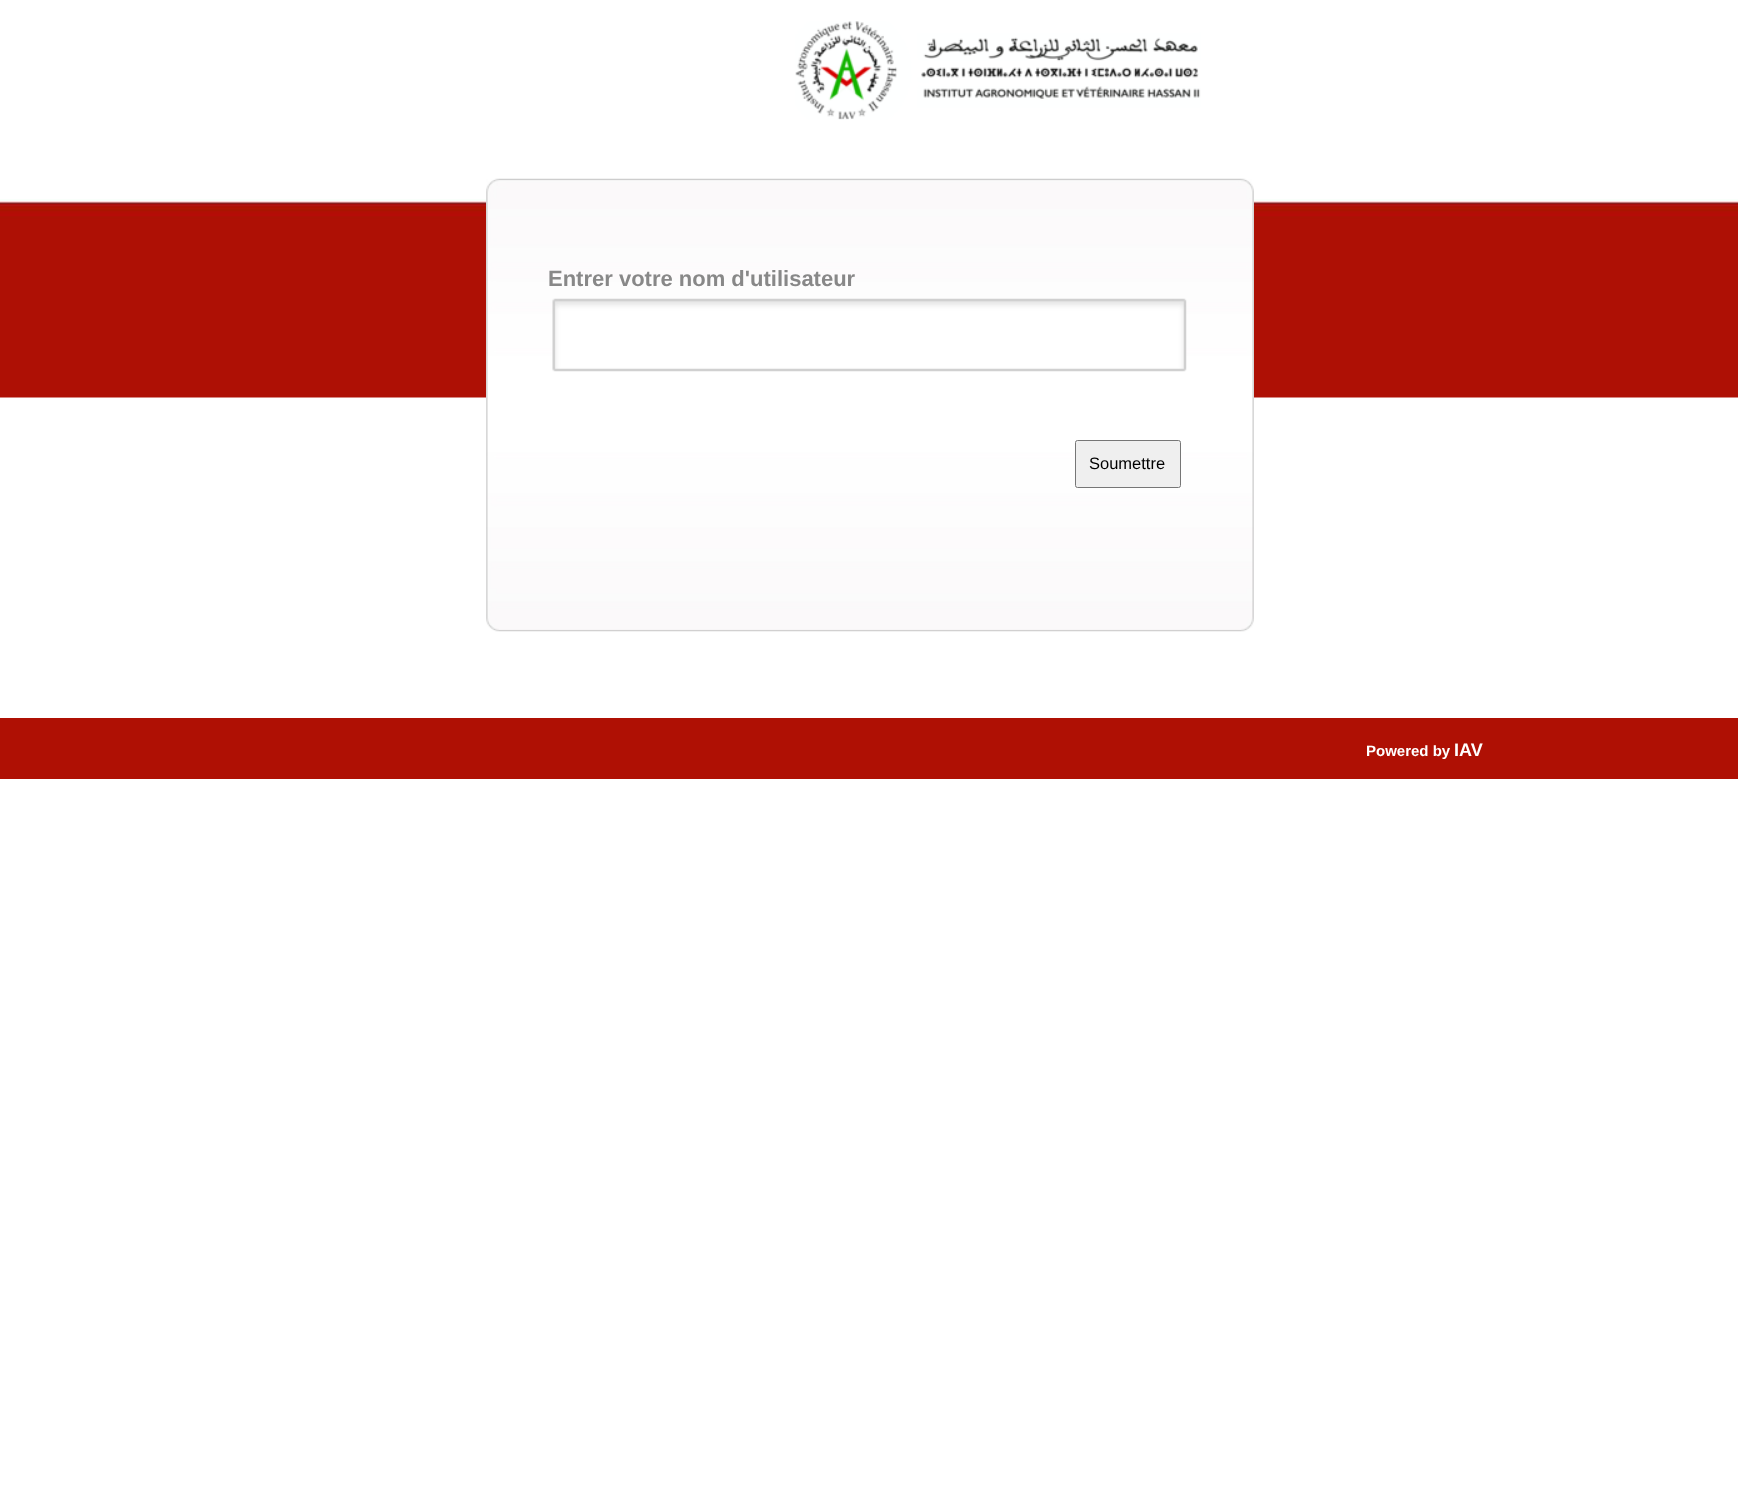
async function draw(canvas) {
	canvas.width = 1738;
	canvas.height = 1494;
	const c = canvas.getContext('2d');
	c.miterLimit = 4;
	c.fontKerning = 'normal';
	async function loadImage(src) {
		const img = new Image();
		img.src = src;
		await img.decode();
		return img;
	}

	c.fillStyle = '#fff';
	c.fillRect(0, 0, 1738, 1494);
	c.drawImage(await loadImage('img1.png'), 795, 21, 406, 99);
	c.drawImage(await loadImage('img2.png'), 0, 199, 1738, 199);
	c.fillRect(486, 199, 768, 199);
	c.drawImage(await loadImage('img3.png'), 486, 178, 768, 454);
	c.font = 'bold 22px Liberation Sans';
	c.fillStyle = '#888';
	c.fillText('Entrer votre nom d\'utilisateur', 548, 286);
	c.drawImage(await loadImage('img4.png'), 552, 298, 635, 74);
	c.fillStyle = '#efefef';
	c.beginPath();
	c.roundRect(1075.5, 440.5, 105, 47, 2);
	c.fill();
	c.strokeStyle = '#767676';
	c.stroke();
	c.font = '16.5px Liberation Sans';
	c.fillStyle = '#000';
	c.fillText('Soumettre', 1089, 469);
	c.fillStyle = '#af1004';
	c.fillRect(0, 718, 1738, 61);
	c.font = 'bold 15px Liberation Sans';
	c.fillStyle = '#fff';
	c.fillText('Powered by', 1366, 756);
	c.font = 'bold 18px Liberation Sans';
	c.fillText('IAV', 1454, 756);
}

draw(document.querySelector('canvas'));
